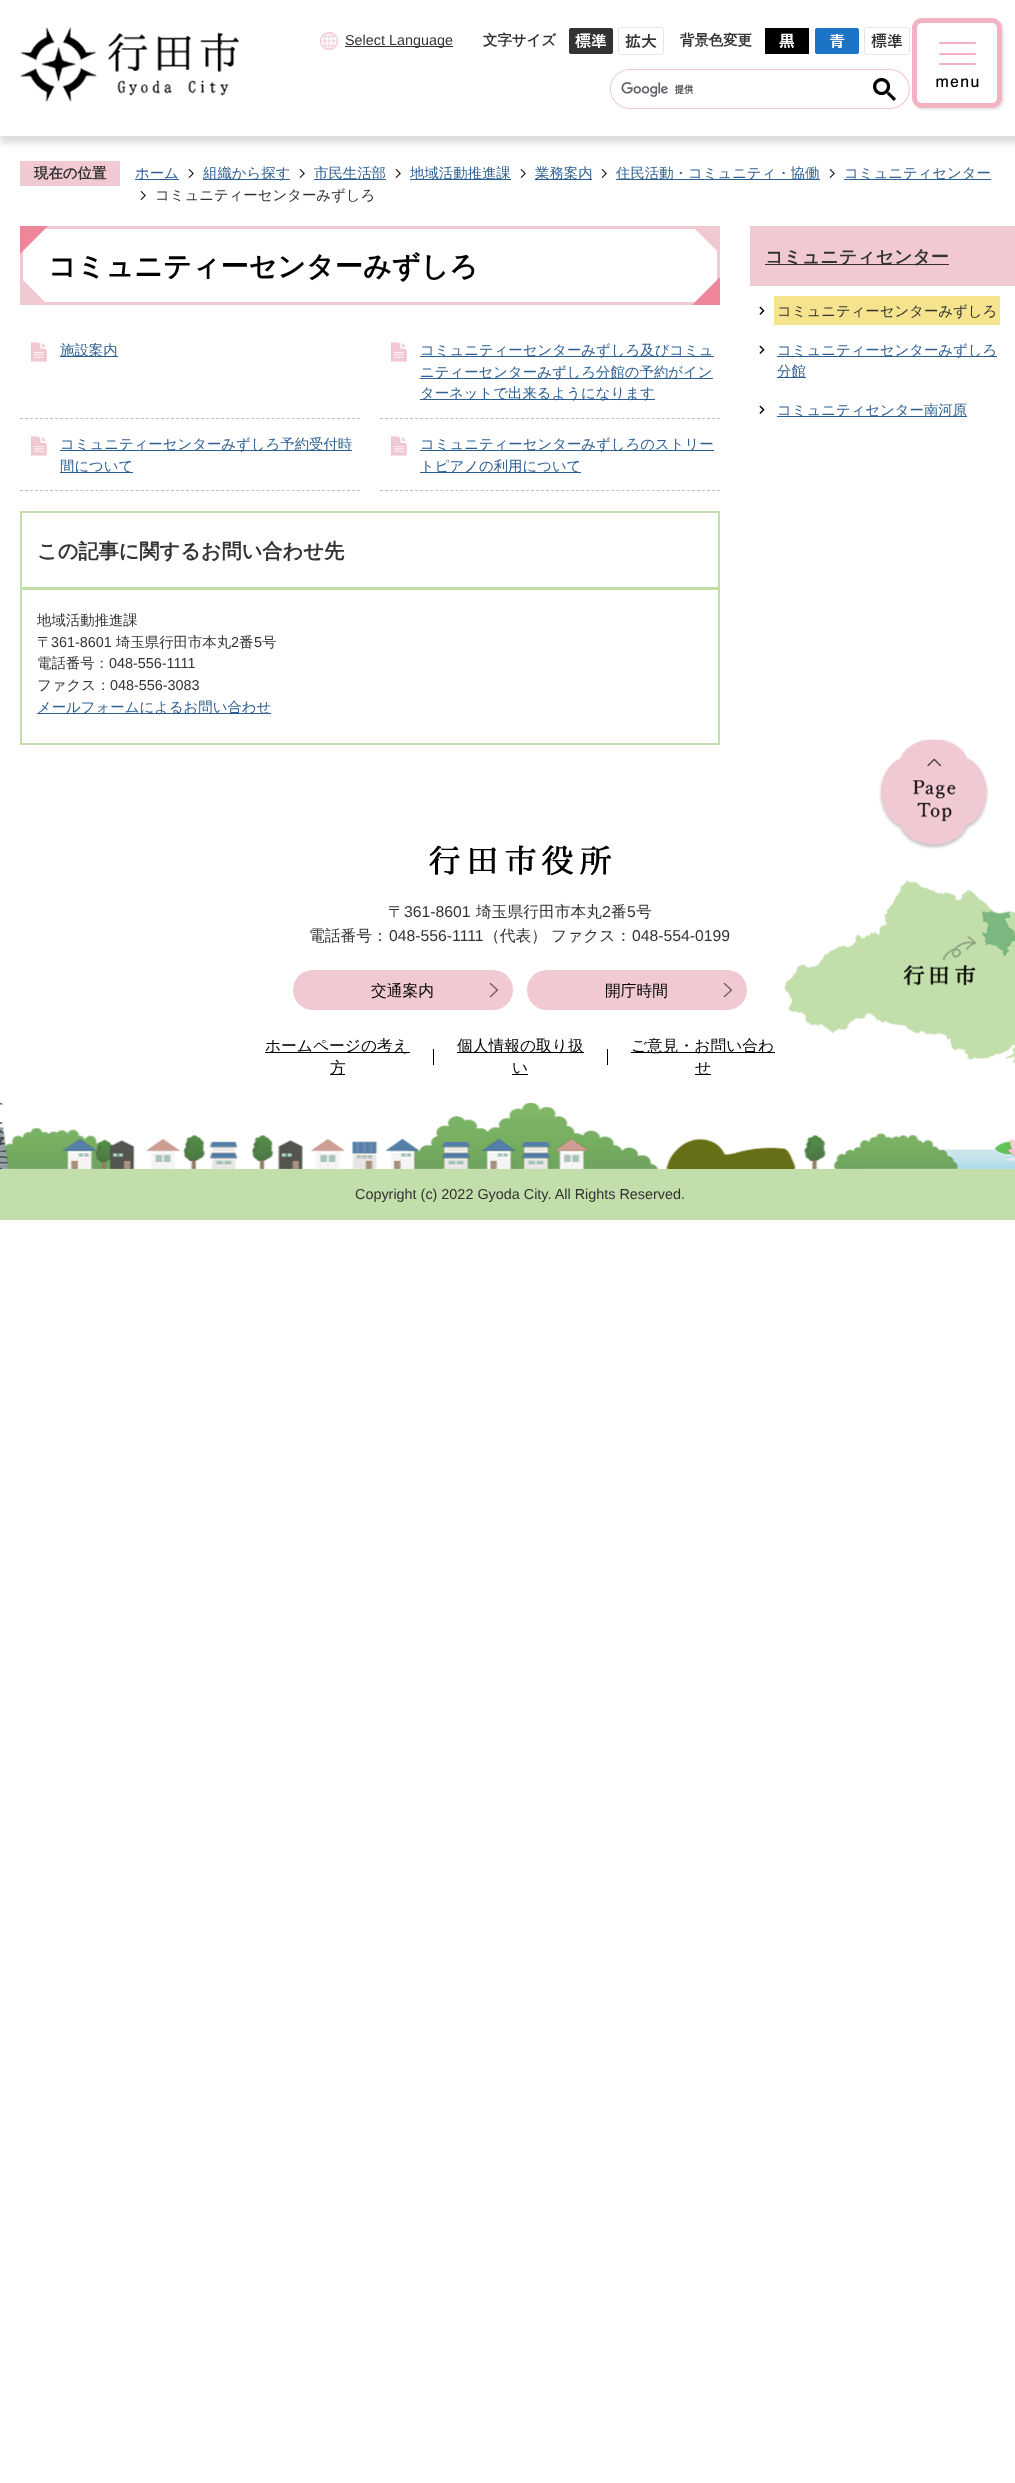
async function draw(canvas) {
	canvas.width = 1015;
	canvas.height = 2483;
	const c = canvas.getContext('2d');
	c.miterLimit = 4;
	c.fontKerning = 'normal';
	async function loadImage(src) {
		const img = new Image();
		img.src = src;
		await img.decode();
		return img;
	}

	c.fillStyle = '#fff';
	c.fillRect(0, 0, 1015, 2483);
	c.save();
	c.beginPath();
	c.rect(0, 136, 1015, 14);
	c.clip();
	c.fillStyle = '#dbdbdb';
	c.filter = 'blur(3.5px)';
	c.beginPath();
	c.rect(0, 7, 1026, 136);
	c.fill();
	c.filter = 'none';
	c.restore();
	c.drawImage(await loadImage('img1.png'), 20, 27, 219, 75);
	c.drawImage(await loadImage('img2.png'), 320, 32, 18, 18);
	c.fillStyle = '#333';
	c.fillRect(345, 46, 108, 1);
	c.font = '14.4px Liberation Sans';
	c.fillText('Select Language', 345, 45);
	c.font = 'bold 14.4px WenQuanYi Zen Hei';
	c.fillText('文字サイズ', 483, 45);
	c.drawImage(await loadImage('img3.png'), 569, 28, 44, 26);
	c.drawImage(await loadImage('img4.png'), 618, 27, 46, 28);
	c.fillText('背景色変更', 680, 45);
	c.drawImage(await loadImage('img5.png'), 765, 28, 44, 26);
	c.drawImage(await loadImage('img6.png'), 815, 28, 44, 26);
	c.drawImage(await loadImage('img7.png'), 864, 27, 46, 28);
	c.drawImage(await loadImage('img8.png'), 912, 18, 93, 93);
	c.fillStyle = '#f0c9d3';
	c.beginPath();
	c.moveTo(630, 69);
	c.lineTo(860, 69);
	c.lineTo(860, 109);
	c.lineTo(630, 109);
	c.bezierCurveTo(619, 109, 610, 100, 610, 89);
	c.bezierCurveTo(610, 78, 619, 69, 630, 69);
	c.closePath();
	c.moveTo(630, 70);
	c.lineTo(860, 70);
	c.lineTo(860, 108);
	c.lineTo(630, 108);
	c.bezierCurveTo(620, 108, 611, 99, 611, 89);
	c.bezierCurveTo(611, 79, 620, 70, 630, 70);
	c.closePath();
	c.fill('evenodd');
	c.fillStyle = '#fff';
	c.beginPath();
	c.roundRect(611, 70, 249, 38, [19, 0, 0, 19]);
	c.fill();
	c.drawImage(await loadImage('img9.png'), 621, 82, 73, 15);
	c.fillStyle = '#f0c9d3';
	c.beginPath();
	c.moveTo(860, 69);
	c.lineTo(890, 69);
	c.bezierCurveTo(901, 69, 910, 78, 910, 89);
	c.bezierCurveTo(910, 100, 901, 109, 890, 109);
	c.lineTo(860, 109);
	c.closePath();
	c.moveTo(860, 70);
	c.lineTo(890, 70);
	c.bezierCurveTo(900, 70, 909, 79, 909, 89);
	c.bezierCurveTo(909, 99, 900, 108, 890, 108);
	c.lineTo(860, 108);
	c.closePath();
	c.fill('evenodd');
	c.drawImage(await loadImage('img10.png'), 873, 78, 23, 23);
	c.fillRect(20, 161, 100, 25);
	c.fillStyle = '#333';
	c.fillText('現在の位置', 34, 178);
	c.fillStyle = '#2d5f92';
	c.fillRect(135, 179, 44, 1);
	c.font = '500 14.4px WenQuanYi Zen Hei';
	c.fillText('ホーム', 135, 178);
	c.drawImage(await loadImage('img11.png'), 188, 169, 6, 9);
	c.fillRect(203, 179, 87, 1);
	c.fillText('組織から探す', 203, 178);
	c.drawImage(await loadImage('img11.png'), 299, 169, 6, 9);
	c.fillRect(314, 179, 72, 1);
	c.fillText('市民生活部', 314, 178);
	c.drawImage(await loadImage('img11.png'), 395, 169, 6, 9);
	c.fillRect(410, 179, 101, 1);
	c.fillText('地域活動推進課', 410, 178);
	c.drawImage(await loadImage('img11.png'), 520, 169, 6, 9);
	c.fillRect(535, 179, 57, 1);
	c.fillText('業務案内', 535, 178);
	c.drawImage(await loadImage('img11.png'), 601, 169, 6, 9);
	c.fillRect(616, 179, 204, 1);
	c.fillText('住民活動・コミュニティ・協働', 616, 178);
	c.drawImage(await loadImage('img11.png'), 829, 169, 6, 9);
	c.fillRect(844, 179, 147, 1);
	c.fillText('コミュニティセンター', 844, 178);
	c.drawImage(await loadImage('img11.png'), 140, 191, 6, 9);
	c.fillStyle = '#333';
	c.fillText('コミュニティーセンターみずしろ', 155, 200);
	c.strokeStyle = '#f0c9d3';
	c.lineWidth = 3;
	c.strokeRect(21.5, 227.5, 697, 76);
	c.fillStyle = '#ee869a';
	c.beginPath();
	c.moveTo(20, 226);
	c.lineTo(48, 226);
	c.lineTo(20, 254);
	c.closePath();
	c.fill();
	c.fillStyle = '#f0c9d3';
	c.beginPath();
	c.moveTo(692, 226);
	c.lineTo(720, 226);
	c.lineTo(720, 254);
	c.closePath();
	c.fill();
	c.font = 'bold 28.1px WenQuanYi Zen Hei';
	c.fillStyle = '#000';
	c.fillText('コミュニティーセンターみずしろ', 48, 276);
	c.fillStyle = '#ee869a';
	c.beginPath();
	c.moveTo(720, 305);
	c.lineTo(692, 305);
	c.lineTo(720, 277);
	c.closePath();
	c.fill();
	c.fillStyle = '#f0c9d3';
	c.beginPath();
	c.moveTo(48, 305);
	c.lineTo(20, 305);
	c.lineTo(20, 277);
	c.closePath();
	c.fill();
	c.drawImage(await loadImage('img12.png'), 30, 342, 17, 20);
	c.beginPath();
	c.moveTo(20, 418.5);
	c.lineTo(360, 418.5);
	c.strokeStyle = '#bfbfbf';
	c.lineWidth = 1;
	c.setLineDash([3, 2.03]);
	c.stroke();
	c.fillStyle = '#2d5f92';
	c.fillRect(60, 356, 58, 1);
	c.font = '500 14.4px WenQuanYi Zen Hei';
	c.fillText('施設案内', 60, 355);
	c.drawImage(await loadImage('img12.png'), 390, 342, 17, 20);
	c.beginPath();
	c.moveTo(380, 418.5);
	c.lineTo(720, 418.5);
	c.stroke();
	c.fillRect(420, 356, 294, 1);
	c.fillText('コミュニティーセンターみずしろ及びコミュ', 420, 355);
	c.fillRect(420, 378, 293, 1);
	c.fillText('ニティーセンターみずしろ分館の予約がイン', 420, 377);
	c.fillRect(420, 399, 235, 1);
	c.fillText('ターネットで出来るようになります', 420, 398);
	c.drawImage(await loadImage('img12.png'), 30, 436, 17, 20);
	c.beginPath();
	c.moveTo(20, 490.5);
	c.lineTo(360, 490.5);
	c.stroke();
	c.fillRect(60, 450, 292, 1);
	c.fillText('コミュニティーセンターみずしろ予約受付時', 60, 449);
	c.fillRect(60, 472, 73, 1);
	c.fillText('間について', 60, 471);
	c.drawImage(await loadImage('img12.png'), 390, 436, 17, 20);
	c.beginPath();
	c.moveTo(380, 490.5);
	c.lineTo(720, 490.5);
	c.stroke();
	c.fillRect(420, 450, 294, 1);
	c.fillText('コミュニティーセンターみずしろのストリー', 420, 449);
	c.fillRect(420, 472, 161, 1);
	c.fillText('トピアノの利用について', 420, 471);
	c.strokeStyle = '#c2deab';
	c.lineWidth = 2;
	c.setLineDash([]);
	c.strokeRect(21, 512, 698, 232);
	c.fillStyle = '#c2deab';
	c.fillRect(22, 587, 696, 3);
	c.font = 'bold 20.2px WenQuanYi Zen Hei';
	c.fillStyle = '#333';
	c.fillText('この記事に関するお問い合わせ先', 37, 558);
	c.font = '500 14.4px WenQuanYi Zen Hei';
	c.fillText('地域活動推進課', 37, 625);
	c.fillText('〒', 37, 647);
	c.font = '14.4px Liberation Sans';
	c.fillText('361-8601', 51, 647);
	c.font = '500 14.4px WenQuanYi Zen Hei';
	c.fillText('埼玉県行田市本丸', 116, 647);
	c.font = '14.4px Liberation Sans';
	c.fillText('2', 231, 647);
	c.font = '500 14.4px WenQuanYi Zen Hei';
	c.fillText('番', 239, 647);
	c.font = '14.4px Liberation Sans';
	c.fillText('5', 254, 647);
	c.font = '500 14.4px WenQuanYi Zen Hei';
	c.fillText('号', 262, 647);
	c.fillText('電話番号：', 37, 668);
	c.font = '14.4px Liberation Sans';
	c.fillText('048-556-1111', 109, 668);
	c.font = '500 14.4px WenQuanYi Zen Hei';
	c.fillText('ファクス：', 37, 690);
	c.font = '14.4px Liberation Sans';
	c.fillText('048-556-3083', 110, 690);
	c.fillStyle = '#2d5f92';
	c.fillRect(37, 713, 234, 1);
	c.font = '500 14.4px WenQuanYi Zen Hei';
	c.fillText('メールフォームによるお問い合わせ', 37, 712);
	c.fillStyle = '#f0c9d3';
	c.fillRect(750, 226, 265, 60);
	c.fillStyle = '#333';
	c.fillRect(765, 264, 184, 1);
	c.font = 'bold 18px WenQuanYi Zen Hei';
	c.fillText('コミュニティセンター', 765, 263);
	c.drawImage(await loadImage('img13.png'), 759, 306, 6, 9);
	c.fillStyle = '#f6e38d';
	c.fillRect(774, 296, 226, 29);
	c.font = '500 14.4px WenQuanYi Zen Hei';
	c.fillStyle = '#333';
	c.fillText('コミュニティーセンターみずしろ', 777, 316);
	c.drawImage(await loadImage('img13.png'), 759, 345, 6, 9);
	c.fillStyle = '#2d5f92';
	c.fillRect(777, 356, 220, 1);
	c.fillText('コミュニティーセンターみずしろ', 777, 355);
	c.fillRect(777, 377, 29, 1);
	c.fillText('分館', 777, 376);
	c.drawImage(await loadImage('img13.png'), 759, 405, 6, 9);
	c.fillRect(777, 416, 190, 1);
	c.fillText('コミュニティセンター南河原', 777, 415);
	c.drawImage(await loadImage('img14.png'), 0, 1102, 1015, 67);
	c.drawImage(await loadImage('img15.png'), 879, 739, 110, 110);
	c.drawImage(await loadImage('img16.png'), 429, 845, 182, 30);
	c.font = '500 15.75px WenQuanYi Zen Hei';
	c.fillStyle = '#333';
	c.fillText('〒', 388, 917);
	c.font = '15.75px Liberation Sans';
	c.fillText('361-8601', 404, 917);
	c.font = '500 15.75px WenQuanYi Zen Hei';
	c.fillText('埼玉県行田市本丸', 476, 917);
	c.font = '15.75px Liberation Sans';
	c.fillText('2', 602, 917);
	c.font = '500 15.75px WenQuanYi Zen Hei';
	c.fillText('番', 611, 917);
	c.font = '15.75px Liberation Sans';
	c.fillText('5', 627, 917);
	c.font = '500 15.75px WenQuanYi Zen Hei';
	c.fillText('号', 636, 917);
	c.fillText('電話番号：', 309, 941);
	c.font = '15.75px Liberation Sans';
	c.fillText('048-556-1111', 389, 941);
	c.font = '500 15.75px WenQuanYi Zen Hei';
	c.fillText('（代表）', 484, 941);
	c.fillText('ファクス：', 551, 941);
	c.font = '15.75px Liberation Sans';
	c.fillText('048-554-0199', 632, 941);
	c.drawImage(await loadImage('img17.png'), 785, 880, 230, 183);
	c.fillStyle = '#f0c9d3';
	c.beginPath();
	c.roundRect(293, 970, 220, 40, 20);
	c.fill();
	c.drawImage(await loadImage('img18.png'), 490, 983, 8, 14);
	c.font = '500 15.75px WenQuanYi Zen Hei';
	c.fillStyle = '#000';
	c.fillText('交通案内', 371, 996);
	c.fillStyle = '#f0c9d3';
	c.beginPath();
	c.roundRect(527, 970, 220, 40, 20);
	c.fill();
	c.drawImage(await loadImage('img18.png'), 724, 983, 8, 14);
	c.fillStyle = '#000';
	c.fillText('開庁時間', 605, 996);
	c.fillRect(265, 1052, 145, 1);
	c.fillText('ホームページの考え', 265, 1051);
	c.fillRect(433, 1049, 1, 16);
	c.fillRect(330, 1074, 15, 1);
	c.fillText('方', 330, 1073);
	c.fillRect(457, 1052, 127, 1);
	c.fillText('個人情報の取り扱', 457, 1051);
	c.fillRect(607, 1049, 1, 16);
	c.fillText('い', 512, 1073);
	c.fillRect(512, 1074, 16, 1);
	c.fillRect(631, 1052, 144, 1);
	c.fillText('ご意見・お問い合わ', 631, 1051);
	c.fillRect(695, 1074, 16, 1);
	c.fillText('せ', 695, 1073);
	c.fillStyle = '#c2deab';
	c.fillRect(0, 1169, 1015, 51);
	c.font = '14.4px Liberation Sans';
	c.fillStyle = '#333';
	c.fillText('Copyright (c) 2022 Gyoda City. All Rights Reserved.', 355, 1199);
}

draw(document.querySelector('canvas'));
